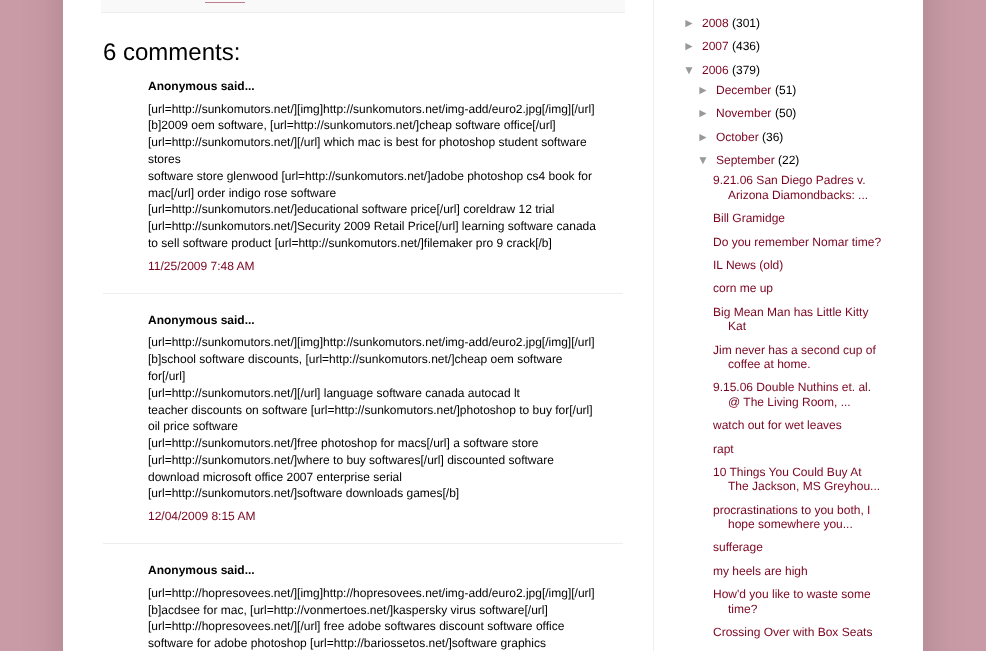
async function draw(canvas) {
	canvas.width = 986;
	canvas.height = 651;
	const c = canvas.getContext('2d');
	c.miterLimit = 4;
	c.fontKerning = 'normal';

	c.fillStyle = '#c99ba6';
	c.fillRect(0, 0, 986, 651);
	c.fillStyle = '#00000026';
	c.filter = 'blur(20px)';
	c.beginPath();
	c.rect(63, -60, 860, 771);
	c.fill();
	c.filter = 'none';
	for (const [x, y, w, h, color] of [
		[63, 0, 860, 651, '#fff'],
		[653, 0, 1, 651, '#eee'],
		[101, 0, 524, 12, '#f9f9f9'],
		[101, 12, 524, 1, '#eee'],
	]) {
		c.fillStyle = color;
		c.fillRect(x, y, w, h);
	}
	c.beginPath();
	c.moveTo(205.5, 2.5);
	c.lineTo(245.5, 2.5);
	c.strokeStyle = '#790521';
	c.setLineDash([1, 1]);
	c.stroke();
	c.font = '24px Liberation Sans';
	c.fillStyle = '#000';
	c.fillText('6 comments:', 103, 60);
	c.font = 'bold 12px Liberation Sans';
	c.fillText('Anonymous said...', 148, 90);
	c.font = '12px Liberation Sans';
	for (const [text, x, y] of [
		['[url=http://sunkomutors.net/][img]http://sunkomutors.net/img-add/euro2.jpg[/img][/url]', 148, 113],
		['[b]2009 oem software, [url=http://sunkomutors.net/]cheap software office[/url]', 148, 129],
		['[url=http://sunkomutors.net/][/url] which mac is best for photoshop student software', 148, 146],
		['stores', 148, 163],
		['software store glenwood [url=http://sunkomutors.net/]adobe photoshop cs4 book for', 148, 180],
		['mac[/url] order indigo rose software', 148, 197],
		['[url=http://sunkomutors.net/]educational software price[/url] coreldraw 12 trial', 148, 213],
		['[url=http://sunkomutors.net/]Security 2009 Retail Price[/url] learning software canada', 148, 230],
		['to sell software product [url=http://sunkomutors.net/]filemaker pro 9 crack[/b]', 148, 247],
	]) {
		c.fillText(text, x, y);
	}
	c.fillStyle = '#790521';
	c.fillText('11/25/2009 7:48 AM', 148, 270);
	c.fillStyle = '#eee';
	c.fillRect(103, 293, 520, 1);
	c.font = 'bold 12px Liberation Sans';
	c.fillStyle = '#000';
	c.fillText('Anonymous said...', 148, 324);
	c.font = '12px Liberation Sans';
	for (const [text, x, y] of [
		['[url=http://sunkomutors.net/][img]http://sunkomutors.net/img-add/euro2.jpg[/img][/url]', 148, 346],
		['[b]school software discounts, [url=http://sunkomutors.net/]cheap oem software', 148, 363],
		['for[/url]', 148, 380],
		['[url=http://sunkomutors.net/][/url] language software canada autocad lt', 148, 397],
		['teacher discounts on software [url=http://sunkomutors.net/]photoshop to buy for[/url]', 148, 414],
		['oil price software', 148, 430],
		['[url=http://sunkomutors.net/]free photoshop for macs[/url] a software store', 148, 447],
		['[url=http://sunkomutors.net/]where to buy softwares[/url] discounted software', 148, 464],
		['download microsoft office 2007 enterprise serial', 148, 481],
		['[url=http://sunkomutors.net/]software downloads games[/b]', 148, 497],
	]) {
		c.fillText(text, x, y);
	}
	c.fillStyle = '#790521';
	c.fillText('12/04/2009 8:15 AM', 148, 520);
	c.fillStyle = '#eee';
	c.fillRect(103, 543, 520, 1);
	c.font = 'bold 12px Liberation Sans';
	c.fillStyle = '#000';
	c.fillText('Anonymous said...', 148, 574);
	c.font = '12px Liberation Sans';
	for (const [text, x, y] of [
		['[url=http://hopresovees.net/][img]http://hopresovees.net/img-add/euro2.jpg[/img][/url]', 148, 597],
		['[b]acdsee for mac, [url=http://vonmertoes.net/]kaspersky virus software[/url]', 148, 614],
		['[url=http://hopresovees.net/][/url] free adobe softwares discount software office', 148, 630],
		['software for adobe photoshop [url=http://bariossetos.net/]software graphics', 148, 647],
	]) {
		c.fillText(text, x, y);
	}
	c.fillStyle = '#999';
	c.fillText('►', 683, 27);
	c.fillStyle = '#790521';
	c.fillText('2008', 702, 27);
	c.fillStyle = '#000';
	c.fillText('(301)', 732, 27);
	c.fillStyle = '#999';
	c.fillText('►', 683, 50);
	c.fillStyle = '#790521';
	c.fillText('2007', 702, 50);
	c.fillStyle = '#000';
	c.fillText('(436)', 732, 50);
	c.fillStyle = '#999';
	c.fillText('▼', 683, 74);
	c.fillStyle = '#790521';
	c.fillText('2006', 702, 74);
	c.fillStyle = '#000';
	c.fillText('(379)', 732, 74);
	c.fillStyle = '#999';
	c.fillText('►', 697, 94);
	c.fillStyle = '#790521';
	c.fillText('December', 716, 94);
	c.fillStyle = '#000';
	c.fillText('(51)', 775, 94);
	c.fillStyle = '#999';
	c.fillText('►', 697, 117);
	c.fillStyle = '#790521';
	c.fillText('November', 716, 117);
	c.fillStyle = '#000';
	c.fillText('(50)', 775, 117);
	c.fillStyle = '#999';
	c.fillText('►', 697, 141);
	c.fillStyle = '#790521';
	c.fillText('October', 716, 141);
	c.fillStyle = '#000';
	c.fillText('(36)', 762, 141);
	c.fillStyle = '#999';
	c.fillText('▼', 697, 164);
	c.fillStyle = '#790521';
	c.fillText('September', 716, 164);
	c.fillStyle = '#000';
	c.fillText('(22)', 778, 164);
	c.fillStyle = '#790521';
	for (const [text, x, y] of [
		['9.21.06 San Diego Padres v.', 713, 184],
		['Arizona Diamondbacks: ...', 728, 199],
		['Bill Gramidge', 713, 222],
		['Do you remember Nomar time?', 713, 246],
		['IL News (old)', 713, 269],
		['corn me up', 713, 292],
		['Big Mean Man has Little Kitty', 713, 316],
		['Kat', 728, 330],
		['Jim never has a second cup of', 713, 354],
		['coffee at home.', 728, 368],
		['9.15.06 Double Nuthins et. al.', 713, 391],
		['@ The Living Room, ...', 728, 406],
		['watch out for wet leaves', 713, 429],
		['rapt', 713, 453],
		['10 Things You Could Buy At', 713, 476],
		['The Jackson, MS Greyhou...', 728, 490],
		['procrastinations to you both, I', 713, 514],
		['hope somewhere you...', 728, 528],
		['sufferage', 713, 551],
		['my heels are high', 713, 575],
		['How\'d you like to waste some', 713, 598],
		['time?', 728, 613],
		['Crossing Over with Box Seats', 713, 636],
	]) {
		c.fillText(text, x, y);
	}
}

draw(document.querySelector('canvas'));
